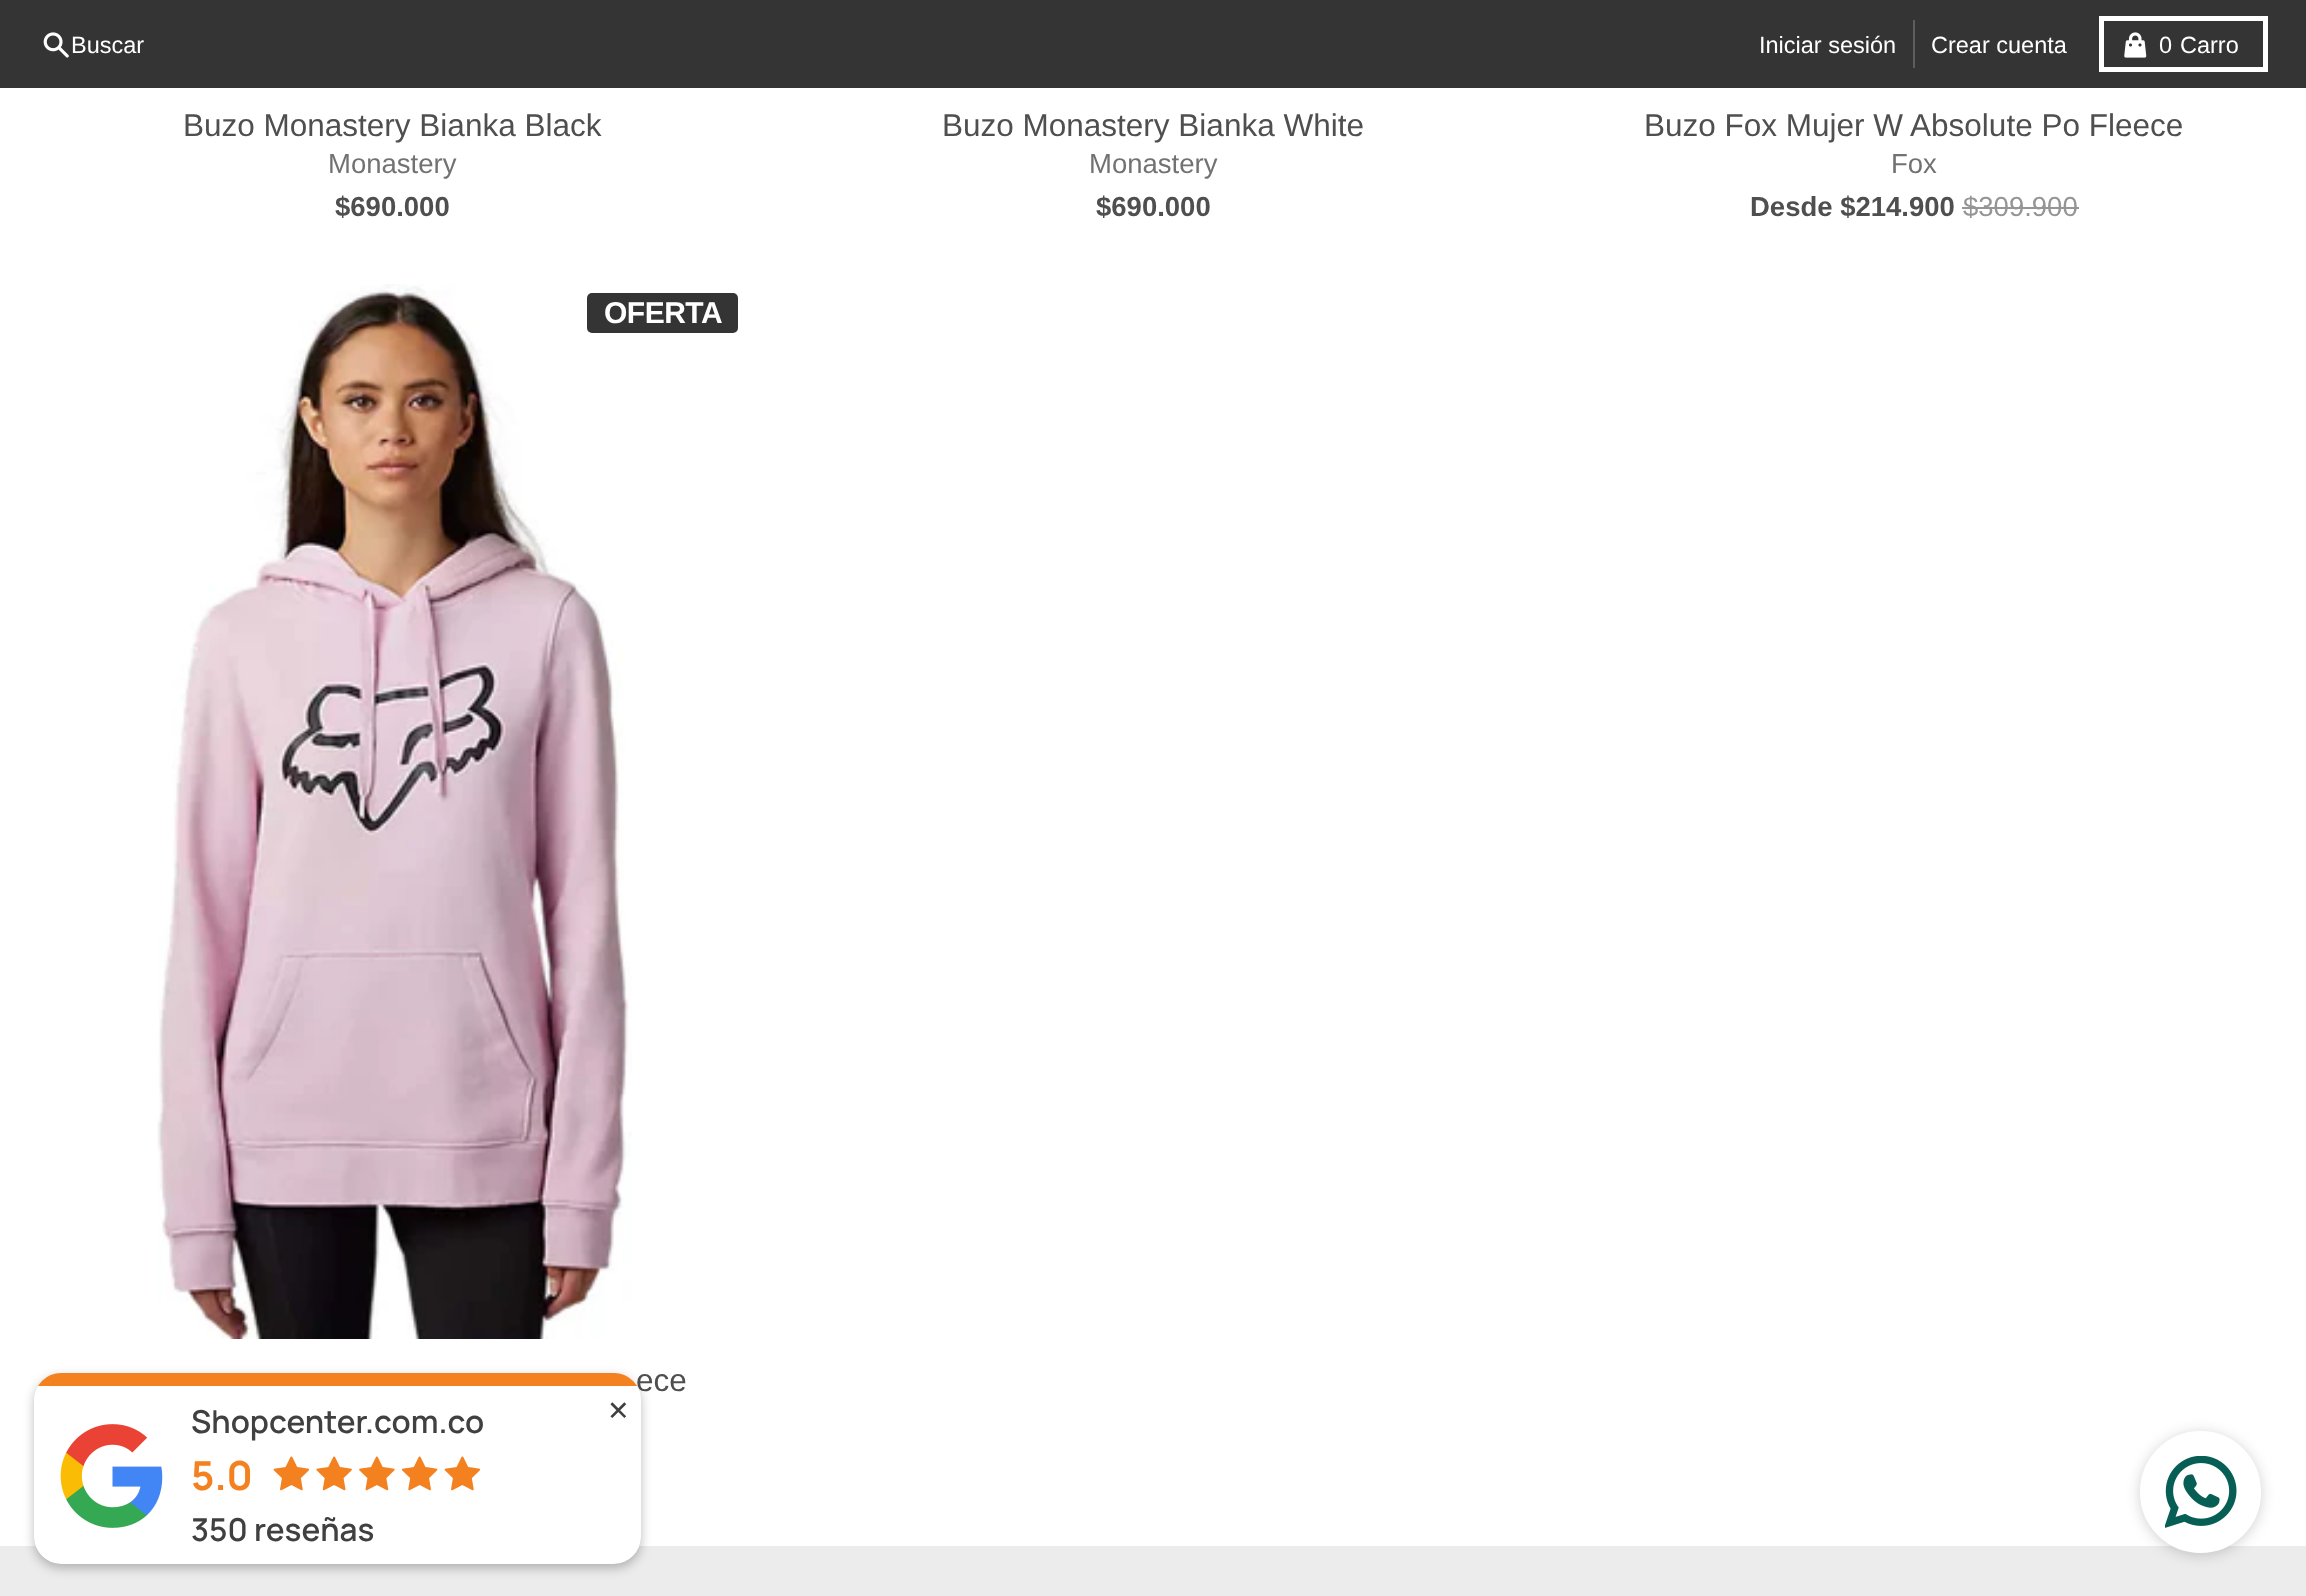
async function draw(canvas) {
	canvas.width = 2306;
	canvas.height = 1596;
	const c = canvas.getContext('2d');
	c.miterLimit = 4;
	c.fontKerning = 'normal';
	async function loadImage(src) {
		const img = new Image();
		img.src = src;
		await img.decode();
		return img;
	}

	c.fillStyle = '#ececec';
	c.fillRect(0, 0, 2306, 1596);
	c.fillStyle = '#343434';
	c.fillRect(0, 0, 2306, 88);
	c.drawImage(await loadImage('img1.png'), 43, 32, 26, 26);
	c.font = '23.5px Liberation Sans';
	c.fillStyle = '#fff';
	c.fillText('Buscar', 71, 53);
	c.fillText('Iniciar sesión', 1759, 53);
	c.fillStyle = '#5d5d5d';
	c.fillRect(1913, 20, 2, 48);
	c.fillStyle = '#fff';
	c.fillText('Crear cuenta', 1931, 53);
	c.strokeStyle = '#fff';
	c.lineWidth = 5;
	c.strokeRect(2101.5, 18.5, 164, 51);
	c.drawImage(await loadImage('img2.png'), 2124, 32, 23, 26);
	c.fillText('0', 2159, 53);
	c.fillText('Carro', 2180, 53);
	c.fillRect(0, 88, 2306, 1458);
	c.font = '31.5px Liberation Sans';
	c.fillStyle = '#4f4f4f';
	c.fillText('Buzo Monastery Bianka Black', 183, 136);
	c.font = '27.5px Liberation Sans';
	c.fillStyle = '#727272';
	c.fillText('Monastery', 328, 173);
	c.font = 'bold 27.5px Liberation Sans';
	c.fillStyle = '#4f4f4f';
	c.fillText('$690.000', 335, 216);
	c.font = '31.5px Liberation Sans';
	c.fillText('Buzo Monastery Bianka White', 942, 136);
	c.font = '27.5px Liberation Sans';
	c.fillStyle = '#727272';
	c.fillText('Monastery', 1089, 173);
	c.font = 'bold 27.5px Liberation Sans';
	c.fillStyle = '#4f4f4f';
	c.fillText('$690.000', 1096, 216);
	c.font = '31.5px Liberation Sans';
	c.fillText('Buzo Fox Mujer W Absolute Po Fleece', 1644, 136);
	c.font = '27.5px Liberation Sans';
	c.fillStyle = '#727272';
	c.fillText('Fox', 1891, 173);
	c.font = 'bold 27.5px Liberation Sans';
	c.fillStyle = '#4f4f4f';
	c.fillText('Desde $214.900', 1750, 216);
	c.font = '27.5px Liberation Sans';
	c.fillStyle = '#959595';
	c.fillText('$309.900', 1963, 216);
	c.fillRect(1962, 207, 117, 2);
	c.drawImage(await loadImage('img3.png'), 157, 284, 475, 1055);
	c.fillStyle = '#343434';
	c.beginPath();
	c.roundRect(587, 293, 151, 40, 5);
	c.fill();
	c.letterSpacing = '-0.5px';
	c.font = 'bold 30px Liberation Sans';
	c.fillStyle = '#fff';
	c.fillText('OFERTA', 604, 323);
	c.letterSpacing = '0px';
	c.font = '31.5px Liberation Sans';
	c.fillStyle = '#4f4f4f';
	c.fillText('ece', 636, 1391);
	c.fillStyle = '#00000042';
	c.filter = 'blur(5.5px)';
	c.beginPath();
	c.roundRect(34, 1377, 607, 191, 27);
	c.fill();
	c.filter = 'none';
	c.save();
	c.beginPath();
	c.roundRect(34, 1373, 607, 191, 27);
	c.clip();
	c.fillStyle = '#f48120';
	c.fillRect(38, 1373, 599, 13);
	c.fillStyle = '#fff';
	c.beginPath();
	c.roundRect(34, 1386, 607, 178, [0, 0, 27, 27]);
	c.fill();
	c.restore();
	c.drawImage(await loadImage('img4.png'), 60, 1424, 103, 104);
	c.font = '600 31.5px Manrope';
	c.fillStyle = '#404040';
	c.fillText('Shopcenter.com.co', 191, 1433);
	c.font = 'bold 40px Manrope';
	c.fillStyle = '#f48120';
	c.fillText('5.0', 191, 1490);
	c.drawImage(await loadImage('img5.png'), 273, 1456, 37, 35);
	c.drawImage(await loadImage('img6.png'), 316, 1456, 36, 35);
	c.drawImage(await loadImage('img7.png'), 359, 1456, 36, 35);
	c.drawImage(await loadImage('img8.png'), 401, 1456, 37, 35);
	c.drawImage(await loadImage('img5.png'), 444, 1456, 37, 35);
	c.font = '600 31.5px Manrope';
	c.fillStyle = '#404040';
	c.fillText('350 reseñas', 191, 1541);
	c.font = '27px DejaVu Sans';
	c.fillText('✕', 607, 1420);
	c.fillStyle = '#1b1b1b33';
	c.filter = 'blur(7px)';
	c.beginPath();
	c.roundRect(2140, 1433, 121, 122, 60.5);
	c.fill();
	c.filter = 'none';
	c.fillStyle = '#fff';
	c.beginPath();
	c.roundRect(2141, 1432, 119, 120, 59.5);
	c.fill();
	c.lineWidth = 2;
	c.stroke();
	c.drawImage(await loadImage('img9.png'), 2165, 1456, 72, 72);
}

draw(document.querySelector('canvas'));
